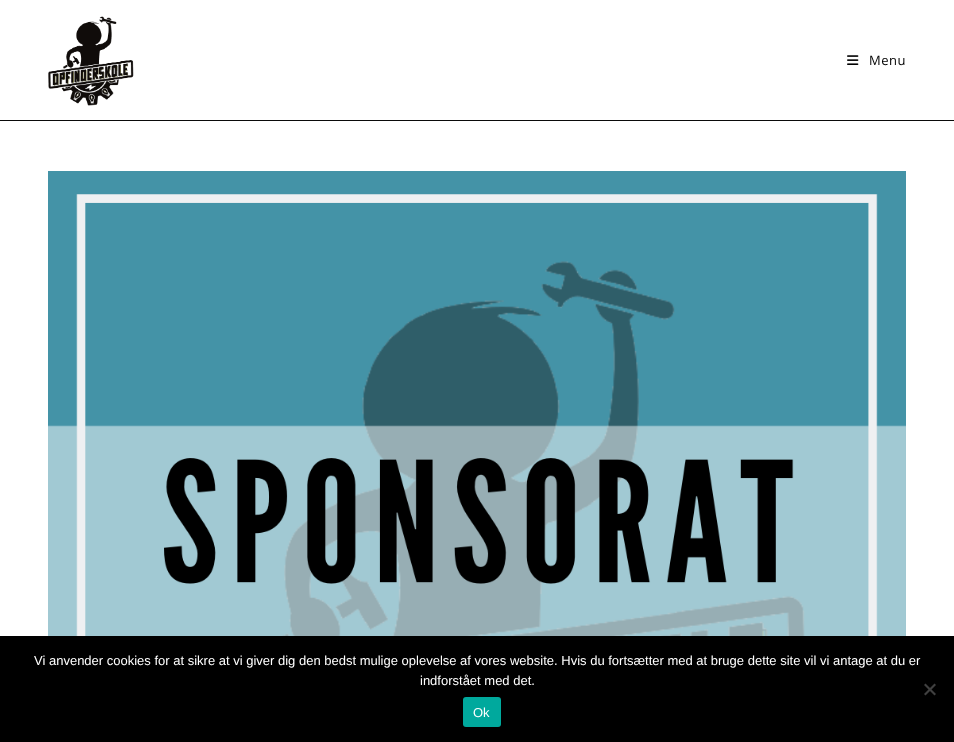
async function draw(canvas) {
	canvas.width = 954;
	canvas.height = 742;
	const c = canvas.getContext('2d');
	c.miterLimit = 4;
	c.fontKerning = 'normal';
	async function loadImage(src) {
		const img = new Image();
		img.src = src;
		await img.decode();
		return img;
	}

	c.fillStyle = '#fff';
	c.fillRect(0, 0, 954, 742);
	c.fillStyle = '#0a0a0a';
	c.fillRect(0, 120, 954, 1);
	c.drawImage(await loadImage('img1.png'), 48, 16, 86, 90);
	c.drawImage(await loadImage('img2.png'), 847, 55, 12, 10);
	c.letterSpacing = '0.5px';
	c.font = '13px Open Sans';
	c.fillStyle = '#000';
	c.fillText('Menu', 869, 65);
	c.drawImage(await loadImage('img3.png'), 48, 171, 858, 465);
	c.fillRect(0, 636, 954, 106);
	c.letterSpacing = '0px';
	c.font = '13px Liberation Sans';
	c.fillStyle = '#fff';
	c.fillText('Vi anvender cookies for at sikre at vi giver dig den bedst mulige oplevelse af vores website. Hvis du fortsætter med at bruge dette site vil vi antage at du er', 34, 665);
	c.fillText('indforstået med det.', 420, 685);
	c.fillStyle = '#404040';
	c.beginPath();
	c.moveTo(934.5, 683.5);
	c.lineTo(936, 685);
	c.lineTo(925.5, 695.5);
	c.lineTo(924, 694);
	c.closePath();
	c.fill();
	c.beginPath();
	c.moveTo(924, 685);
	c.lineTo(925.5, 683.5);
	c.lineTo(936, 694);
	c.lineTo(934.5, 695.5);
	c.closePath();
	c.fill();
	c.fillStyle = '#00a99d';
	c.beginPath();
	c.roundRect(463, 697, 38, 30, 3);
	c.fill();
	c.fillStyle = '#fff';
	c.fillText('Ok', 473, 717);
}

draw(document.querySelector('canvas'));
